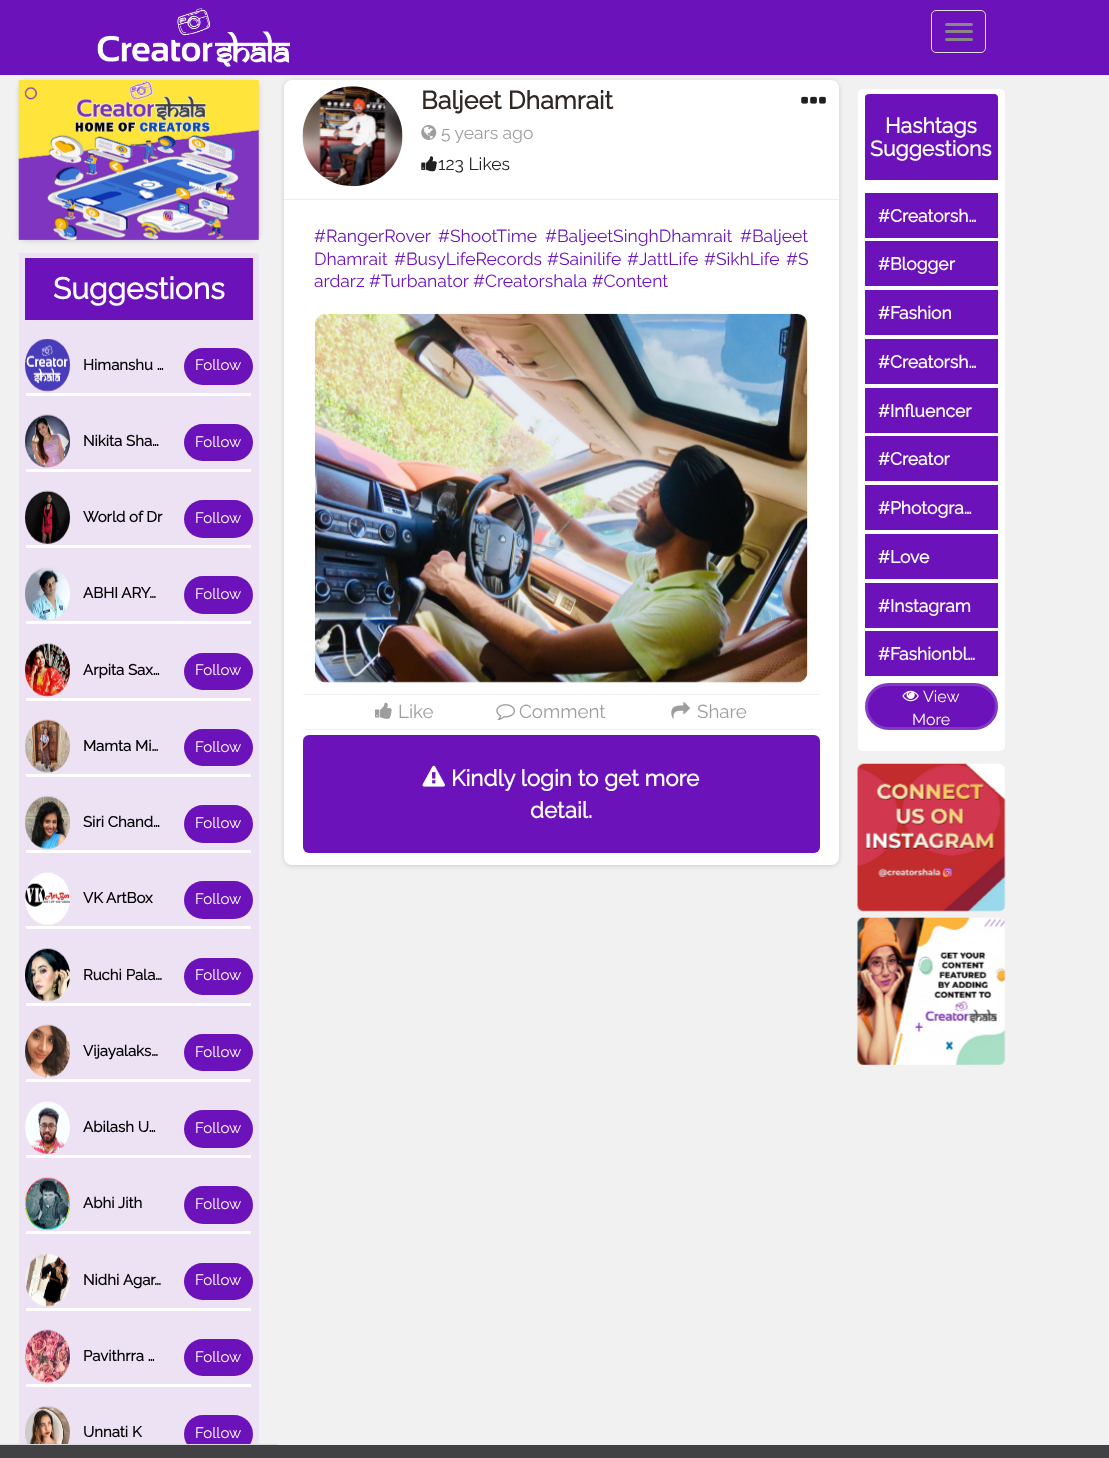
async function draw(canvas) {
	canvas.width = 1109;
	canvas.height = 1458;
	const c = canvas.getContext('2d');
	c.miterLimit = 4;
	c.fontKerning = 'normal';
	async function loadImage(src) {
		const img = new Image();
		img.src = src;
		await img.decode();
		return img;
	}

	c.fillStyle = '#f1f1f1';
	c.fillRect(0, 0, 1109, 1458);
	c.fillStyle = '#00000024';
	c.filter = 'blur(2.5px)';
	c.beginPath();
	c.roundRect(19, 81, 240, 160, 8);
	c.fill();
	c.filter = 'none';
	c.filter = 'blur(2.5px)';
	c.beginPath();
	c.roundRect(284, 81, 555, 785, 8);
	c.fill();
	c.filter = 'none';
	c.fillStyle = '#6c12bb';
	c.fillRect(0, 0, 1109, 75);
	c.drawImage(await loadImage('img1.png'), 97, 8, 193, 59);
	c.beginPath();
	c.roundRect(931.5, 10.5, 54, 42, 4.5);
	c.strokeStyle = '#ddd';
	c.stroke();
	c.fillStyle = '#888';
	c.beginPath();
	c.roundRect(945, 23, 28, 3, 1.5);
	c.fill();
	c.beginPath();
	c.roundRect(945, 30, 28, 3, 1.5);
	c.fill();
	c.beginPath();
	c.roundRect(945, 38, 28, 3, 1.5);
	c.fill();
	c.fillStyle = '#d9d9d9';
	c.fillRect(0, 1444, 278, 1);
	c.drawImage(await loadImage('img2.png'), 18, 80, 241, 160);
	c.fillStyle = '#ede1f4';
	c.fillRect(19, 253, 240, 1191);
	c.fillStyle = '#6c12bb';
	c.fillRect(25, 258, 228, 62);
	c.font = 'bold 30px Raleway';
	c.fillStyle = '#fff';
	c.fillText('Suggestions', 53, 299);
	c.drawImage(await loadImage('img3.png'), 25, 339, 45, 53);
	c.font = 'bold 15px Raleway';
	c.fillStyle = '#000';
	c.fillText('Himanshu …', 83, 370);
	c.fillStyle = '#6c12bb';
	c.beginPath();
	c.roundRect(184, 348, 69, 37, 18.5);
	c.fill();
	c.font = '100 15px Raleway';
	c.fillStyle = '#fff';
	c.fillText('Follow', 195, 370);
	c.fillRect(26, 393, 225, 3);
	c.drawImage(await loadImage('img4.png'), 25, 414, 45, 54);
	c.font = 'bold 15px Raleway';
	c.fillStyle = '#000';
	c.fillText('Nikita Sha…', 83, 446);
	c.fillStyle = '#6c12bb';
	c.beginPath();
	c.roundRect(184, 424, 69, 37, 18.5);
	c.fill();
	c.font = '100 15px Raleway';
	c.fillStyle = '#fff';
	c.fillText('Follow', 195, 447);
	c.fillRect(26, 469, 225, 3);
	c.drawImage(await loadImage('img5.png'), 25, 490, 45, 54);
	c.font = 'bold 15px Raleway';
	c.fillStyle = '#000';
	c.fillText('World of Dr', 83, 522);
	c.fillStyle = '#6c12bb';
	c.beginPath();
	c.roundRect(184, 500, 69, 38, 19);
	c.fill();
	c.font = '100 15px Raleway';
	c.fillStyle = '#fff';
	c.fillText('Follow', 195, 523);
	c.fillRect(26, 545, 225, 3);
	c.drawImage(await loadImage('img6.png'), 25, 567, 45, 54);
	c.font = 'bold 15px Raleway';
	c.fillStyle = '#000';
	c.fillText('ABHI ARY…', 83, 598);
	c.fillStyle = '#6c12bb';
	c.beginPath();
	c.roundRect(184, 576, 69, 38, 19);
	c.fill();
	c.font = '100 15px Raleway';
	c.fillStyle = '#fff';
	c.fillText('Follow', 195, 599);
	c.fillRect(26, 621, 225, 3);
	c.drawImage(await loadImage('img7.png'), 25, 643, 45, 54);
	c.font = 'bold 15px Raleway';
	c.fillStyle = '#000';
	c.fillText('Arpita Sax…', 83, 675);
	c.fillStyle = '#6c12bb';
	c.beginPath();
	c.roundRect(184, 653, 69, 37, 18.5);
	c.fill();
	c.font = '100 15px Raleway';
	c.fillStyle = '#fff';
	c.fillText('Follow', 195, 675);
	c.fillRect(26, 698, 225, 3);
	c.drawImage(await loadImage('img8.png'), 25, 719, 45, 54);
	c.font = 'bold 15px Raleway';
	c.fillStyle = '#000';
	c.fillText('Mamta Mi…', 83, 751);
	c.fillStyle = '#6c12bb';
	c.beginPath();
	c.roundRect(184, 729, 69, 37, 18.5);
	c.fill();
	c.font = '100 15px Raleway';
	c.fillStyle = '#fff';
	c.fillText('Follow', 195, 752);
	c.fillRect(26, 774, 225, 3);
	c.drawImage(await loadImage('img9.png'), 25, 795, 45, 54);
	c.font = 'bold 15px Raleway';
	c.fillStyle = '#000';
	c.fillText('Siri Chand…', 83, 827);
	c.fillStyle = '#6c12bb';
	c.beginPath();
	c.roundRect(184, 805, 69, 38, 19);
	c.fill();
	c.font = '100 15px Raleway';
	c.fillStyle = '#fff';
	c.fillText('Follow', 195, 828);
	c.fillRect(26, 850, 225, 3);
	c.drawImage(await loadImage('img10.png'), 25, 872, 45, 53);
	c.font = 'bold 15px Raleway';
	c.fillStyle = '#000';
	c.fillText('VK', 83, 903);
	c.fillText('ArtBox', 106, 903);
	c.fillStyle = '#6c12bb';
	c.beginPath();
	c.roundRect(184, 881, 69, 38, 19);
	c.fill();
	c.font = '100 15px Raleway';
	c.fillStyle = '#fff';
	c.fillText('Follow', 195, 904);
	c.fillRect(26, 926, 225, 3);
	c.drawImage(await loadImage('img11.png'), 25, 948, 45, 54);
	c.font = 'bold 15px Raleway';
	c.fillStyle = '#000';
	c.fillText('Ruchi Pala…', 83, 980);
	c.fillStyle = '#6c12bb';
	c.beginPath();
	c.roundRect(184, 958, 69, 37, 18.5);
	c.fill();
	c.font = '100 15px Raleway';
	c.fillStyle = '#fff';
	c.fillText('Follow', 195, 980);
	c.fillRect(26, 1003, 225, 3);
	c.drawImage(await loadImage('img12.png'), 25, 1024, 45, 54);
	c.font = 'bold 15px Raleway';
	c.fillStyle = '#000';
	c.fillText('Vijayalaks…', 83, 1056);
	c.fillStyle = '#6c12bb';
	c.beginPath();
	c.roundRect(184, 1034, 69, 37, 18.5);
	c.fill();
	c.font = '100 15px Raleway';
	c.fillStyle = '#fff';
	c.fillText('Follow', 195, 1057);
	c.fillRect(26, 1079, 225, 3);
	c.drawImage(await loadImage('img13.png'), 25, 1101, 45, 53);
	c.font = 'bold 15px Raleway';
	c.fillStyle = '#000';
	c.fillText('Abilash U…', 83, 1132);
	c.fillStyle = '#6c12bb';
	c.beginPath();
	c.roundRect(184, 1110, 69, 38, 19);
	c.fill();
	c.font = '100 15px Raleway';
	c.fillStyle = '#fff';
	c.fillText('Follow', 195, 1133);
	c.fillRect(26, 1155, 225, 3);
	c.drawImage(await loadImage('img14.png'), 25, 1177, 45, 54);
	c.font = 'bold 15px Raleway';
	c.fillStyle = '#000';
	c.fillText('Abhi', 83, 1208);
	c.fillText('Jith', 118, 1208);
	c.fillStyle = '#6c12bb';
	c.beginPath();
	c.roundRect(184, 1186, 69, 38, 19);
	c.fill();
	c.font = '100 15px Raleway';
	c.fillStyle = '#fff';
	c.fillText('Follow', 195, 1209);
	c.fillRect(26, 1231, 225, 3);
	c.drawImage(await loadImage('img15.png'), 25, 1253, 45, 54);
	c.font = 'bold 15px Raleway';
	c.fillStyle = '#000';
	c.fillText('Nidhi', 83, 1285);
	c.fillText('Agar…', 123, 1285);
	c.fillStyle = '#6c12bb';
	c.beginPath();
	c.roundRect(184, 1263, 69, 37, 18.5);
	c.fill();
	c.font = '100 15px Raleway';
	c.fillStyle = '#fff';
	c.fillText('Follow', 195, 1285);
	c.fillRect(26, 1308, 225, 3);
	c.drawImage(await loadImage('img16.png'), 25, 1329, 45, 54);
	c.font = 'bold 15px Raleway';
	c.fillStyle = '#000';
	c.fillText('Pavithrra …', 83, 1361);
	c.fillStyle = '#6c12bb';
	c.beginPath();
	c.roundRect(184, 1339, 69, 37, 18.5);
	c.fill();
	c.font = '100 15px Raleway';
	c.fillStyle = '#fff';
	c.fillText('Follow', 195, 1362);
	c.fillRect(26, 1384, 225, 3);
	c.drawImage(await loadImage('img17.png'), 25, 1405, 45, 39);
	c.font = 'bold 15px Raleway';
	c.fillStyle = '#000';
	c.fillText('Unnati K', 83, 1437);
	c.fillStyle = '#424143';
	c.fillRect(0, 1445, 1109, 13);
	c.save();
	c.beginPath();
	c.rect(0, 74, 278, 1370);
	c.clip();
	c.fillStyle = '#6c12bb';
	c.beginPath();
	c.roundRect(184, 1415, 69, 38, 19);
	c.fill();
	c.restore();
	c.font = '100 15px Raleway';
	c.fillStyle = '#fff';
	c.fillText('Follow', 195, 1438);
	c.beginPath();
	c.roundRect(284, 80, 555, 785, 8);
	c.fill();
	c.fillStyle = '#ededed';
	c.fillRect(284, 199, 555, 1);
	c.drawImage(await loadImage('img18.png'), 302, 86, 101, 101);
	c.font = 'bold 25px Raleway';
	c.fillStyle = '#302825';
	c.fillText('Baljeet Dhamrait', 421, 109);
	c.drawImage(await loadImage('img19.png'), 421, 125, 16, 15);
	c.font = '100 17.5px Raleway';
	c.fillStyle = '#9d9d9d';
	c.fillText('5 years ago', 441, 139);
	c.drawImage(await loadImage('img20.png'), 421, 156, 16, 16);
	c.fillStyle = '#212121';
	c.fillText('123 Likes', 438, 170);
	c.drawImage(await loadImage('img21.png'), 801, 96, 25, 8);
	c.fillStyle = '#6c12bb';
	for (const [text, x, y] of [
		['#RangerRover', 314, 242],
		['#ShootTime', 438, 242],
		['#BaljeetSinghDhamrait', 545, 242],
		['#Baljeet', 740, 242],
		['Dhamrait', 314, 265],
		['#BusyLifeRecords', 394, 265],
		['#Sainilife', 547, 265],
		['#JattLife', 627, 265],
		['#SikhLife', 704, 265],
		['#S', 786, 265],
		['ardarz #Turbanator', 314, 287],
		['#Creatorshala #Content', 473, 287],
	]) {
		c.fillText(text, x, y);
	}
	c.save();
	c.beginPath();
	c.roundRect(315, 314, 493, 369, 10);
	c.clip();
	c.fillStyle = '#9d9d9d';
	c.filter = 'blur(4.5px)';
	c.beginPath();
	c.roundRect(316, 315, 490, 366, 9);
	c.fill();
	c.filter = 'none';
	c.restore();
	c.fillStyle = '#fbfbfb';
	c.beginPath();
	c.roundRect(315, 314, 493, 369, 10);
	c.fill();
	c.drawImage(await loadImage('img22.png'), 315, 313, 493, 370);
	c.fillStyle = '#f0f0f0';
	c.fillRect(303, 694, 517, 1);
	c.fillRect(303, 729, 517, 1);
	c.drawImage(await loadImage('img23.png'), 375, 702, 17, 17);
	c.font = '100 18.75px Raleway';
	c.fillStyle = '#9d9d9d';
	c.fillText('Like', 398, 718);
	c.drawImage(await loadImage('img24.png'), 496, 704, 19, 17);
	c.fillText('Comment', 519, 718);
	c.drawImage(await loadImage('img25.png'), 671, 702, 19, 17);
	c.fillText('Share', 697, 718);
	c.fillStyle = '#6c12bb';
	c.beginPath();
	c.roundRect(303, 735, 517, 118, 6);
	c.fill();
	c.drawImage(await loadImage('img26.png'), 422, 765, 23, 22);
	c.font = 'bold 22.5px Raleway';
	c.fillStyle = '#fff';
	c.fillText('Kindly login to get more', 451, 786);
	c.fillText('detail.', 530, 818);
	c.beginPath();
	c.roundRect(858, 89, 147, 662, 5);
	c.fill();
	c.fillStyle = '#6c12bb';
	c.beginPath();
	c.roundRect(865, 94, 133, 86, [4, 4, 0, 0]);
	c.fill();
	c.font = 'bold 21.25px Raleway';
	c.fillStyle = '#fff';
	c.fillText('Hashtags', 885, 133);
	c.fillText('Suggestions', 870, 156);
	c.fillStyle = '#6c12bb';
	c.fillRect(865, 193, 133, 45);
	c.font = 'bold 17.5px Raleway';
	c.fillStyle = '#fff';
	c.fillText('#Creatorsh…', 878, 222);
	c.fillStyle = '#6c12bb';
	c.fillRect(865, 241, 133, 45);
	c.fillStyle = '#fff';
	c.fillText('#Blogger', 878, 270);
	c.fillStyle = '#6c12bb';
	c.fillRect(865, 290, 133, 45);
	c.fillStyle = '#fff';
	c.fillText('#Fashion', 878, 319);
	c.fillStyle = '#6c12bb';
	c.fillRect(865, 339, 133, 45);
	c.fillStyle = '#fff';
	c.fillText('#Creatorsh…', 878, 368);
	c.fillStyle = '#6c12bb';
	c.fillRect(865, 388, 133, 45);
	c.fillStyle = '#fff';
	c.fillText('#Influencer', 878, 417);
	c.fillStyle = '#6c12bb';
	c.fillRect(865, 436, 133, 45);
	c.fillStyle = '#fff';
	c.fillText('#Creator', 878, 465);
	c.fillStyle = '#6c12bb';
	c.fillRect(865, 485, 133, 45);
	c.fillStyle = '#fff';
	c.fillText('#Photogra…', 878, 514);
	c.fillStyle = '#6c12bb';
	c.fillRect(865, 534, 133, 45);
	c.fillStyle = '#fff';
	c.fillText('#Love', 878, 563);
	c.fillStyle = '#6c12bb';
	c.fillRect(865, 583, 133, 45);
	c.fillStyle = '#fff';
	c.fillText('#Instagram', 878, 612);
	c.fillStyle = '#6c12bb';
	c.fillRect(865, 631, 133, 45);
	c.fillStyle = '#fff';
	c.fillText('#Fashionbl…', 878, 660);
	c.fillStyle = '#6c12bb';
	c.beginPath();
	c.roundRect(866.5, 684.5, 130, 44, 22);
	c.fill();
	c.strokeStyle = '#813bc4';
	c.lineWidth = 3;
	c.stroke();
	c.drawImage(await loadImage('img27.png'), 902, 690, 17, 12);
	c.font = '100 16px Raleway';
	c.fillStyle = '#fff';
	c.fillText('View', 923, 702);
	c.fillText('More', 912, 725);
	c.drawImage(await loadImage('img28.png'), 857, 763, 149, 149);
	c.drawImage(await loadImage('img29.png'), 857, 917, 149, 149);
}

draw(document.querySelector('canvas'));
